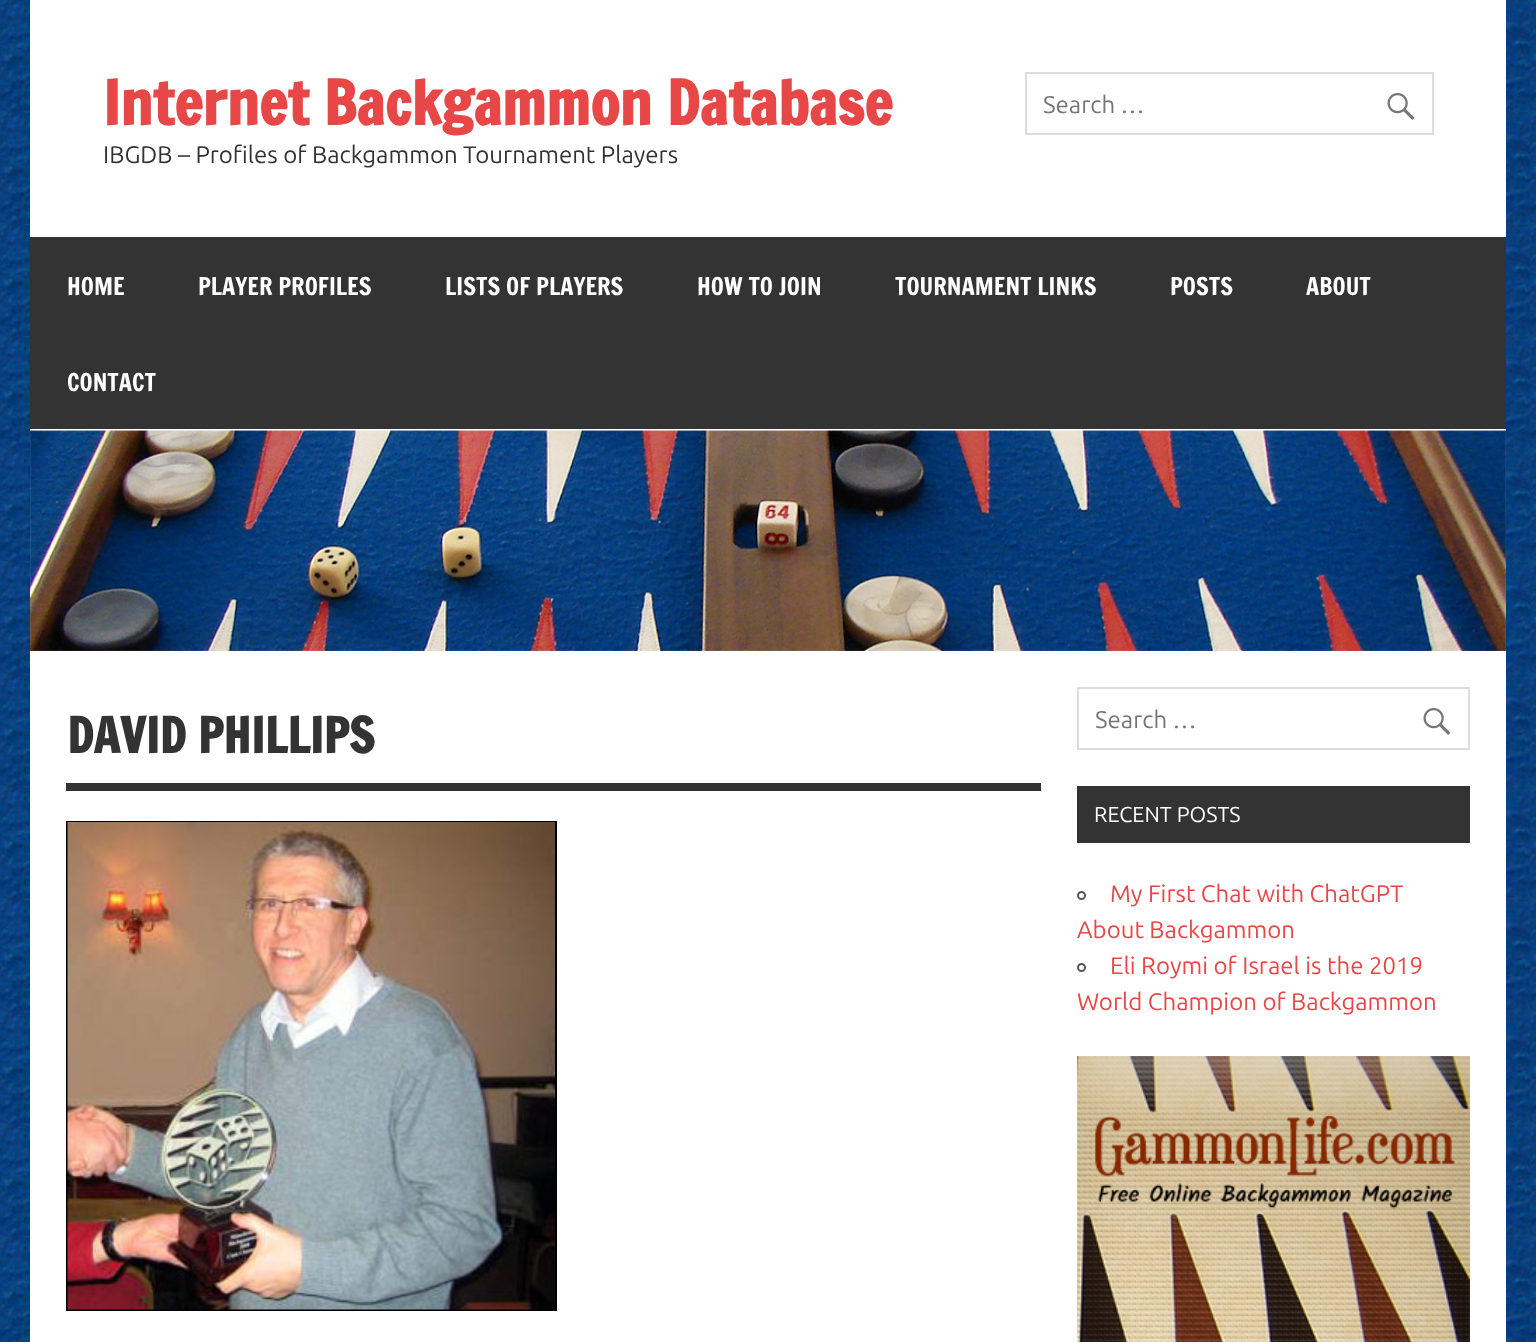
async function draw(canvas) {
	canvas.width = 1536;
	canvas.height = 1342;
	const c = canvas.getContext('2d');
	c.miterLimit = 4;
	c.fontKerning = 'normal';
	async function loadImage(src) {
		const img = new Image();
		img.src = src;
		await img.decode();
		return img;
	}

	c.fillStyle = '#fff';
	c.fillRect(0, 0, 1536, 1342);
	c.drawImage(await loadImage('img1.png'), 0, 0, 1536, 1342);
	c.fillRect(30, 0, 1476, 1342);
	c.font = 'bold 60px Francois One';
	c.fillStyle = '#e84747';
	c.fillText('Internet Backgammon Database', 103, 125);
	c.font = '24px Ubuntu';
	c.fillStyle = '#333';
	c.fillText('IBGDB – Profiles of Backgammon Tournament Players', 103, 163);
	c.strokeStyle = '#ddd';
	c.lineWidth = 2;
	c.strokeRect(1026, 73, 407, 61);
	c.fillStyle = '#757575';
	c.fillText('Search …', 1043, 113);
	c.drawImage(await loadImage('img2.png'), 1387, 93, 28, 27);
	c.fillStyle = '#333';
	c.fillRect(30, 237, 1476, 192);
	c.font = '24px Francois One';
	c.fillStyle = '#fff';
	for (const [text, x, y] of [
		['HOME', 67, 295],
		['PLAYER PROFILES', 198, 295],
		['LISTS OF PLAYERS', 445, 295],
		['HOW TO JOIN', 697, 295],
		['TOURNAMENT LINKS', 895, 295],
		['POSTS', 1170, 295],
		['ABOUT', 1306, 295],
		['CONTACT', 67, 391],
	]) {
		c.fillText(text, x, y);
	}
	c.drawImage(await loadImage('img3.png'), 30, 430, 1476, 221);
	c.fillStyle = '#333';
	c.fillRect(66, 783, 975, 8);
	c.font = 'bold 48px Francois One';
	c.fillText('DAVID PHILLIPS', 67, 753);
	c.strokeStyle = '#000';
	c.strokeRect(67, 822, 489, 488);
	c.drawImage(await loadImage('img4.png'), 67, 822, 488, 488);
	c.strokeStyle = '#ddd';
	c.strokeRect(1078, 688, 391, 61);
	c.font = '24px Ubuntu';
	c.fillStyle = '#757575';
	c.fillText('Search …', 1095, 728);
	c.drawImage(await loadImage('img2.png'), 1423, 708, 28, 27);
	c.fillStyle = '#333';
	c.fillRect(1077, 786, 393, 57);
	c.font = '21.5px Ubuntu';
	c.fillStyle = '#fff';
	c.fillText('RECENT POSTS', 1094, 822);
	c.beginPath();
	c.arc(1081.5, 895.5, 3.5, 0, 2 * Math.PI);
	c.strokeStyle = '#555';
	c.stroke();
	c.font = '24px Ubuntu';
	c.fillStyle = '#e84747';
	c.fillText('My First Chat with ChatGPT', 1110, 902);
	c.fillText('About Backgammon', 1077, 938);
	c.beginPath();
	c.arc(1081.5, 967.5, 3.5, 0, 2 * Math.PI);
	c.stroke();
	c.fillText('Eli Roymi of Israel is the 2019', 1110, 974);
	c.fillText('World Champion of Backgammon', 1077, 1010);
	c.drawImage(await loadImage('img5.png'), 1077, 1056, 393, 286);
}

draw(document.querySelector('canvas'));
